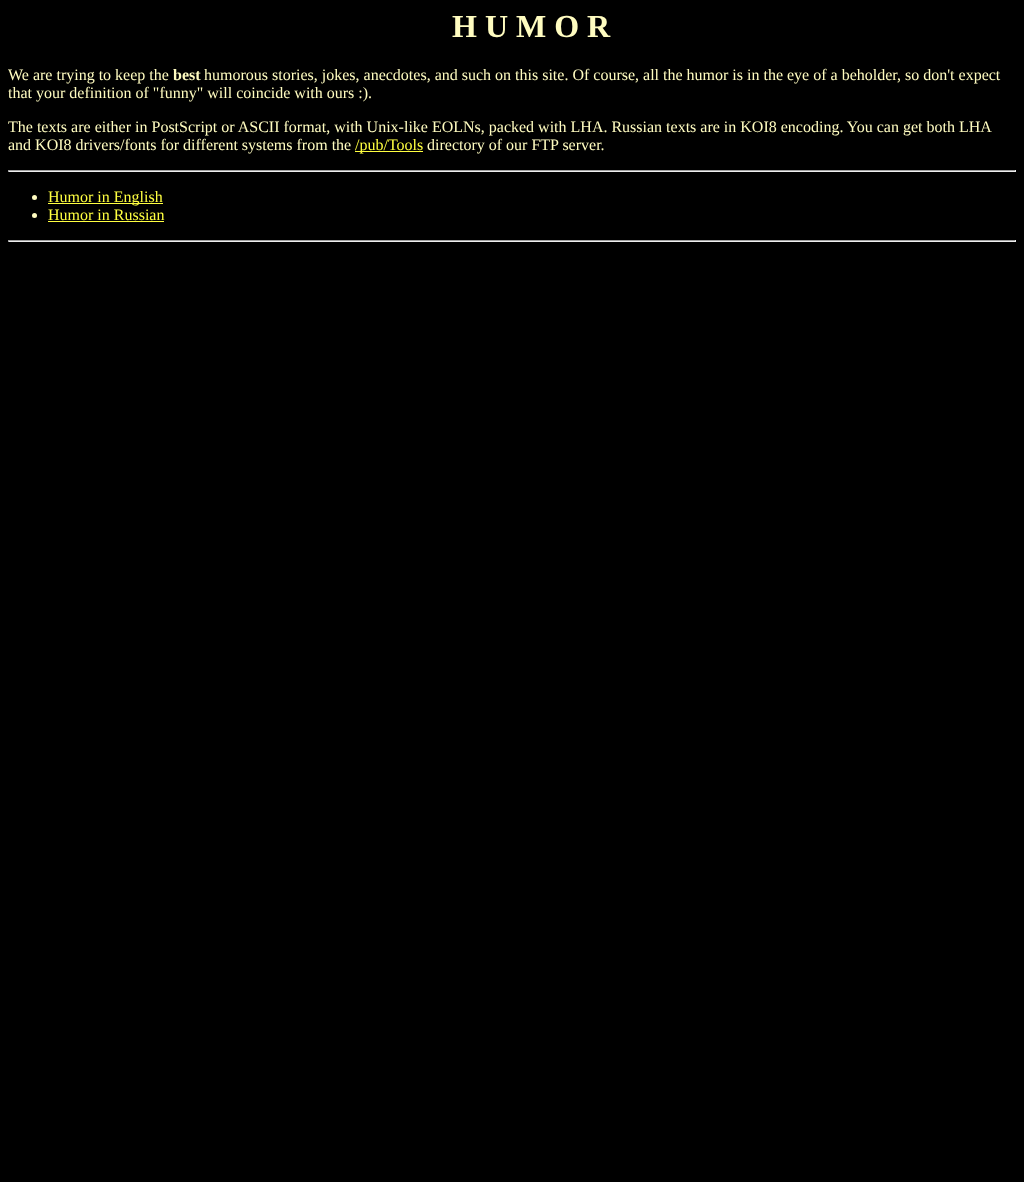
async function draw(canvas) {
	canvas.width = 1024;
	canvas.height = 1182;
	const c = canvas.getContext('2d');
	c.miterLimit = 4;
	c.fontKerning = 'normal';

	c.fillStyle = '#000';
	c.fillRect(0, 0, 1024, 1182);
	c.font = 'bold 32px Liberation Serif';
	c.fillStyle = '#fffcc0';
	c.fillText('H U M O R', 452, 37);
	c.font = '16px Liberation Serif';
	c.fillText('We are trying to keep the', 8, 80);
	c.font = 'bold 16px Liberation Serif';
	c.fillText('best', 173, 80);
	c.font = '16px Liberation Serif';
	for (const [text, x, y] of [
		['humorous stories, jokes, anecdotes, and such on this site. Of course, all the humor is in the eye of a beholder, so don\'t expect', 204, 80],
		['that your definition of "funny" will coincide with ours :).', 8, 98],
		['The texts are either in PostScript or ASCII format, with Unix-like EOLNs, packed with LHA. Russian texts are in KOI8 encoding. You can get both LHA', 8, 132],
		['and KOI8 drivers/fonts for different systems from the', 8, 150],
	]) {
		c.fillText(text, x, y);
	}
	c.fillStyle = '#ffff40';
	c.fillRect(355, 151, 68, 1);
	c.fillText('/pub/Tools', 355, 150);
	c.fillStyle = '#fffcc0';
	c.fillText('directory of our FTP server.', 427, 150);
	for (const [x, y, w, h, color] of [
		[8, 170, 1008, 1, '#9f9f9f'],
		[1015, 170, 1, 2, '#eee'],
		[8, 171, 1008, 1, '#eee'],
		[8, 170, 1, 2, '#9f9f9f'],
	]) {
		c.fillStyle = color;
		c.fillRect(x, y, w, h);
	}
	c.fillStyle = '#fffcc0';
	c.beginPath();
	c.arc(34.5, 197.5, 2.5, 0, 2 * Math.PI);
	c.fill();
	c.fillStyle = '#ffff40';
	c.fillRect(48, 203, 115, 1);
	c.fillText('Humor in English', 48, 202);
	c.fillStyle = '#fffcc0';
	c.beginPath();
	c.arc(34.5, 215.5, 2.5, 0, 2 * Math.PI);
	c.fill();
	c.fillStyle = '#ffff40';
	c.fillText('Humor in Russian', 48, 220);
	for (const [x, y, w, h, color] of [
		[48, 221, 116, 1, '#ffff40'],
		[8, 240, 1008, 1, '#9f9f9f'],
		[1015, 240, 1, 2, '#eee'],
		[8, 241, 1008, 1, '#eee'],
		[8, 240, 1, 2, '#9f9f9f'],
	]) {
		c.fillStyle = color;
		c.fillRect(x, y, w, h);
	}
}

draw(document.querySelector('canvas'));
